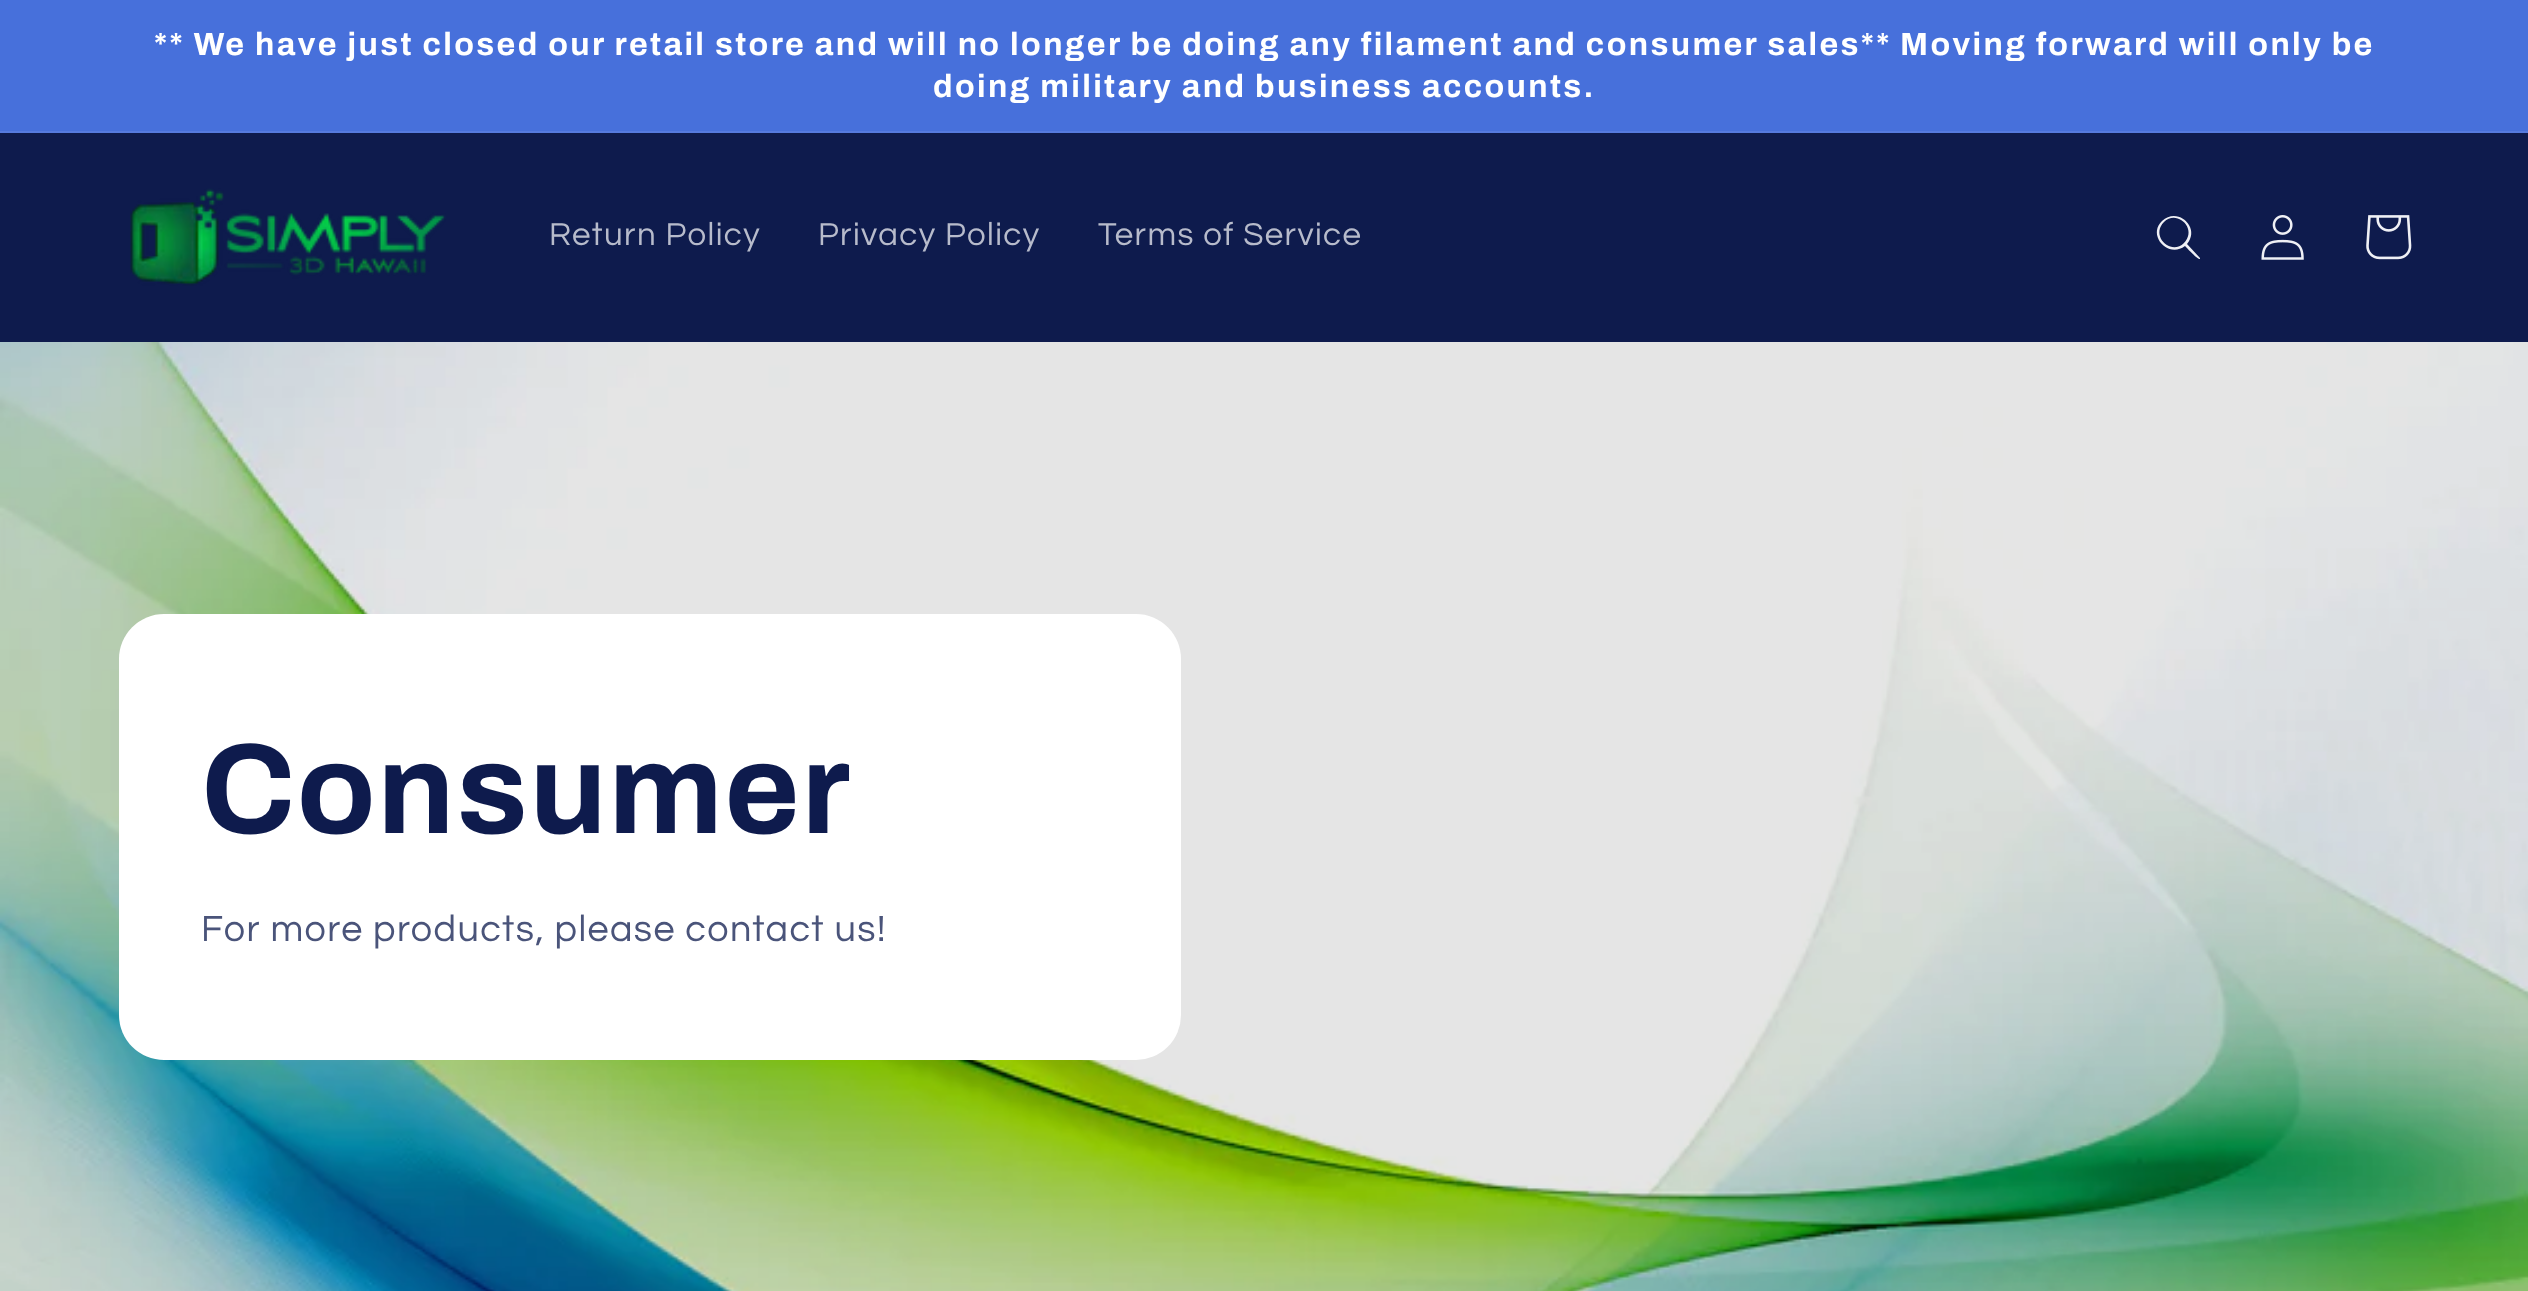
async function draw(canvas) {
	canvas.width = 2528;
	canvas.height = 1291;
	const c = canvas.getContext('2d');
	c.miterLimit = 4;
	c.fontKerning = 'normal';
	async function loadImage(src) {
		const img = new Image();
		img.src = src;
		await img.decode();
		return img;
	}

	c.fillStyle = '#fff';
	c.fillRect(0, 0, 2528, 1291);
	c.fillStyle = '#4770db';
	c.fillRect(0, 0, 2528, 131);
	c.fillStyle = '#567bde';
	c.fillRect(0, 131, 2528, 2);
	c.letterSpacing = '2.36px';
	c.font = 'bold 32.18px Archivo';
	c.fillStyle = '#fff';
	for (const [text, x, y] of [
		['** We have just closed our retail store and will no longer be doing any filament and consumer sales**', 154, 55],
		['Moving forward will only be', 1900, 55],
		['doing military and business accounts.', 933, 97],
	]) {
		c.fillText(text, x, y);
	}
	c.fillStyle = '#0e1b4d';
	c.fillRect(0, 133, 2528, 209);
	c.drawImage(await loadImage('img1.png'), 130, 188, 316, 98);
	c.letterSpacing = '1.4px';
	c.font = '33px Questrial';
	c.fillStyle = '#b7bbcb';
	for (const [text, x, y] of [
		['Return Policy', 549, 245],
		['Privacy Policy', 818, 245],
		['Terms of Service', 1098, 245],
	]) {
		c.fillText(text, x, y);
	}
	c.fillStyle = '#eff0f5';
	c.beginPath();
	c.moveTo(2184, 243);
	c.bezierCurveTo(2171, 256, 2150, 236, 2164, 222);
	c.bezierCurveTo(2177, 209, 2198, 229, 2184, 243);
	c.closePath();
	c.moveTo(2185, 246);
	c.bezierCurveTo(2168, 259, 2147, 235, 2162, 221);
	c.bezierCurveTo(2178, 206, 2201, 228, 2187, 244);
	c.lineTo(2200, 258);
	c.lineTo(2200, 259);
	c.bezierCurveTo(2198, 260, 2187, 248, 2185, 246);
	c.closePath();
	c.fill('evenodd');
	c.drawImage(await loadImage('img2.png'), 2261, 215, 43, 45);
	c.drawImage(await loadImage('img3.png'), 2366, 215, 46, 45);
	c.drawImage(await loadImage('img4.png'), 0, 342, 2528, 949);
	c.fillStyle = '#fff';
	c.beginPath();
	c.roundRect(119, 614, 1062, 446, 45);
	c.fill();
	c.letterSpacing = '1.5px';
	c.font = 'bold 128.75px Archivo';
	c.fillStyle = '#0e1b4d';
	c.fillText('Consumer', 201, 833);
	c.letterSpacing = '1.4px';
	c.font = '37.75px Questrial';
	c.fillStyle = '#4a547a';
	c.fillText('For more products, please contact us!', 201, 941);
}

draw(document.querySelector('canvas'));
